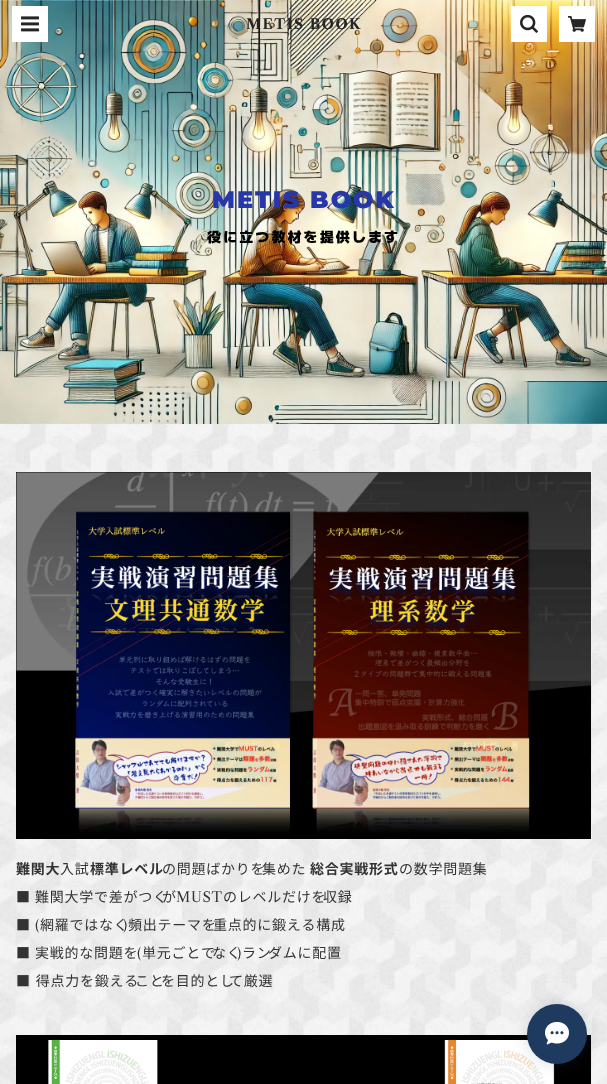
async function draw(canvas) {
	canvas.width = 607;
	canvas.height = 1084;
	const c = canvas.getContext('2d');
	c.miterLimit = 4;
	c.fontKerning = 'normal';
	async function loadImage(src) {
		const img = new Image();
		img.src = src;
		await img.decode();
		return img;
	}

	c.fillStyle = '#fff';
	c.fillRect(0, 0, 607, 1084);
	c.drawImage(await loadImage('img1.png'), 0, 424, 607, 660);
	c.drawImage(await loadImage('img5.png'), 0, 0, 607, 424);
	c.fillRect(12, 6, 36, 36);
	c.drawImage(await loadImage('img2.png'), 21, 16, 18, 16);
	c.letterSpacing = '1.5px';
	c.font = 'bold 14px Libre Caslon Text';
	c.fillStyle = '#252525';
	c.fillText('METIS BOOK', 246, 29);
	c.fillStyle = '#fff';
	c.fillRect(511, 6, 36, 36);
	c.drawImage(await loadImage('img3.png'), 520, 14, 18, 19);
	c.fillRect(559, 6, 36, 36);
	c.drawImage(await loadImage('img4.png'), 568, 16, 18, 16);
	c.letterSpacing = '2px';
	c.font = '900 24px Montserrat';
	c.fillStyle = '#2737a9';
	c.fillText('METIS BOOK', 212, 208);
	c.letterSpacing = '2.1px';
	c.font = '900 14px "M PLUS 1"';
	c.fillStyle = '#000';
	c.fillText('役に立つ教材を提供します', 207, 242);
	c.drawImage(await loadImage('img6.png'), 16, 472, 575, 367);
	c.letterSpacing = '0.75px';
	c.font = 'bold 14px Noto Sans JP';
	c.fillStyle = '#333';
	c.fillText('難関大', 16, 874);
	c.font = '14px Noto Sans JP';
	c.fillText('入試', 60, 874);
	c.font = 'bold 14px Noto Sans JP';
	c.fillText('標準レベル', 90, 874);
	c.font = '14px Noto Sans JP';
	c.fillText('の問題ばかりを', 162, 874);
	c.fillText('集めた', 262, 874);
	c.font = 'bold 14px Noto Sans JP';
	c.fillText('総合実戦形式', 310, 874);
	c.font = '14px Noto Sans JP';
	c.fillText('の数学問題集', 399, 874);
	c.font = 'bold 14px Noto Sans JP';
	c.fillText('■', 16, 902);
	c.font = '14px Noto Sans JP';
	c.fillText('難関大学で差がつく', 35, 902);
	c.fillText('が', 162, 902);
	c.font = '14px Libre Caslon Text';
	c.fillText('MUST', 176, 902);
	c.font = '14px Noto Sans JP';
	c.fillText('のレベルだけを', 223, 902);
	c.fillText('収録', 323, 902);
	c.font = 'bold 14px Noto Sans JP';
	c.fillText('■', 16, 930);
	c.font = '14px Libre Caslon Text';
	c.fillText('(', 35, 930);
	c.font = '14px Noto Sans JP';
	c.fillText('網羅ではなく', 40, 930);
	c.font = '14px Libre Caslon Text';
	c.fillText(')', 123, 930);
	c.font = '14px Noto Sans JP';
	c.fillText('頻出テーマを', 128, 930);
	c.fillText('重点的に鍛える構成', 213, 930);
	c.font = 'bold 14px Noto Sans JP';
	c.fillText('■', 16, 958);
	c.font = '14px Noto Sans JP';
	c.fillText('実戦的な問題を', 35, 958);
	c.font = '14px Libre Caslon Text';
	c.fillText('(', 137, 958);
	c.font = '14px Noto Sans JP';
	c.fillText('単元ごとで', 142, 958);
	c.fillText('なく', 212, 958);
	c.font = '14px Libre Caslon Text';
	c.fillText(')', 237, 958);
	c.font = '14px Noto Sans JP';
	c.fillText('ラン', 242, 958);
	c.fillText('ダムに配置', 268, 958);
	c.wordSpacing = '1px';
	c.fillText('■ 得点力を鍛える', 16, 986);
	c.fillText('こと', 135, 986);
	c.fillText('を目的とし', 161, 986);
	c.fillText('て厳選', 229, 986);
	c.drawImage(await loadImage('img7.png'), 16, 1035, 575, 49);
	c.fillStyle = '#33425833';
	c.filter = 'blur(7.5px)';
	c.beginPath();
	c.roundRect(527, 1004, 60, 60, 30);
	c.fill();
	c.filter = 'none';
	c.fillStyle = '#1e3a5f';
	c.beginPath();
	c.arc(557, 1034, 30, 0, 2 * Math.PI);
	c.fill();
	c.drawImage(await loadImage('img8.png'), 545, 1021, 24, 24);
}

draw(document.querySelector('canvas'));
